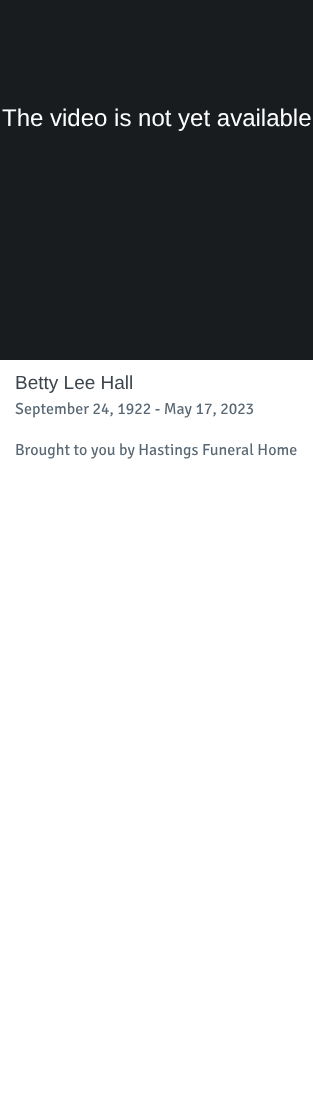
async function draw(canvas) {
	canvas.width = 313;
	canvas.height = 1120;
	const c = canvas.getContext('2d');
	c.miterLimit = 4;
	c.fontKerning = 'normal';

	c.fillStyle = '#fff';
	c.fillRect(0, 0, 313, 1120);
	c.fillStyle = '#181c1f';
	c.fillRect(0, 0, 313, 360);
	c.font = '24px Liberation Sans';
	c.fillStyle = '#fff';
	c.fillText('The video is not yet available', 2, 126);
	c.font = '19px Liberation Sans';
	c.fillStyle = '#3c444c';
	c.fillText('Betty Lee Hall', 15, 389);
	c.font = '16px Signika Negative';
	c.fillStyle = '#586773';
	c.fillText('September 24, 1922 - May 17, 2023', 15, 414);
	c.fillText('Brought to you by Hastings Funeral Home', 15, 455);
}

draw(document.querySelector('canvas'));
